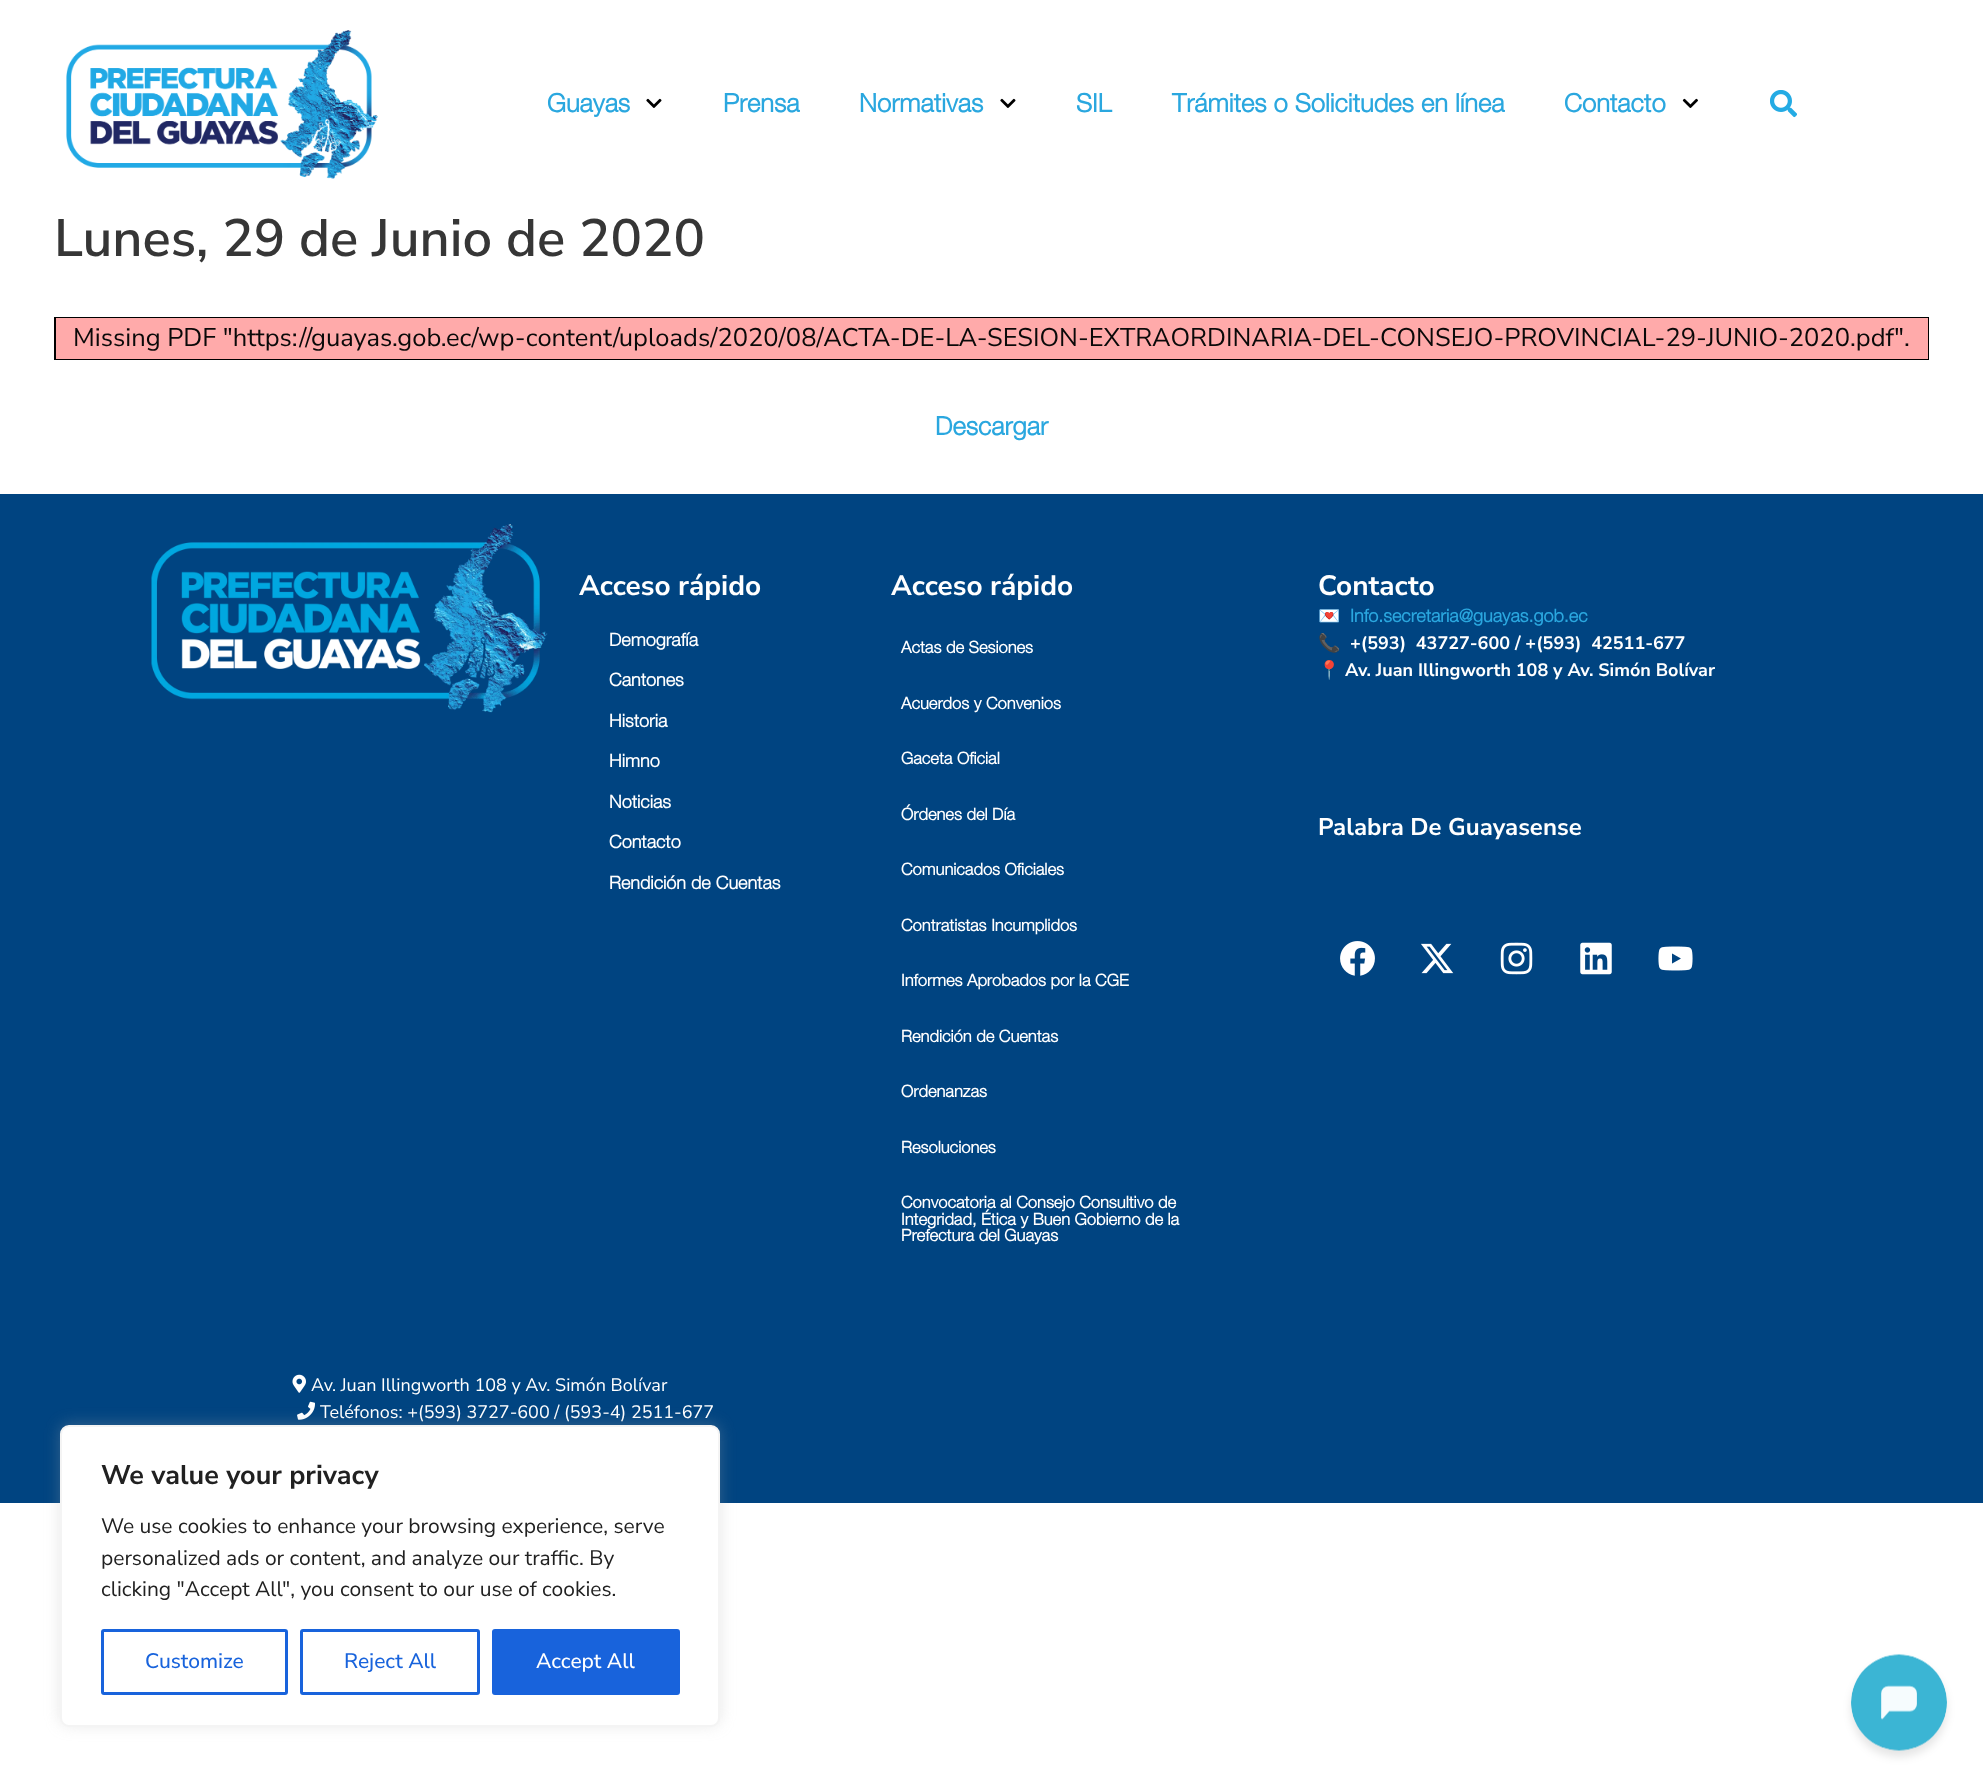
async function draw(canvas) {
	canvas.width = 1983;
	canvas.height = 1786;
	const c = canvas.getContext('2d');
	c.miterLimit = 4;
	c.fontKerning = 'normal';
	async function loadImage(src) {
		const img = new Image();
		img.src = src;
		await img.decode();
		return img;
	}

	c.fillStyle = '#fff';
	c.fillRect(0, 0, 1983, 1786);
	c.drawImage(await loadImage('img1.png'), 66, 30, 312, 149);
	c.font = 'bold 25.5px Helvetica Neue';
	c.fillStyle = '#2aa7df';
	c.fillText('Guayas', 547, 112);
	c.drawImage(await loadImage('img2.png'), 646, 98, 16, 10);
	c.fillText('Prensa', 723, 112);
	c.fillText('Normativas', 859, 112);
	c.drawImage(await loadImage('img2.png'), 1000, 98, 16, 10);
	for (const [text, x, y] of [
		['SIL', 1076, 112],
		['Trámites o Solicitudes en línea', 1172, 112],
		['Contacto', 1564, 112],
	]) {
		c.fillText(text, x, y);
	}
	c.drawImage(await loadImage('img3.png'), 1682, 98, 16, 10);
	c.drawImage(await loadImage('img4.png'), 1770, 90, 27, 28);
	c.font = '600 52.5px Nunito Sans';
	c.fillStyle = '#363636';
	c.fillText('Lunes, 29 de Junio de 2020', 54, 256);
	c.strokeStyle = '#000';
	c.lineWidth = 2;
	c.strokeRect(55, 318, 1873, 41);
	c.fillStyle = '#faa';
	c.fillRect(56, 318, 1872, 41);
	c.font = '25.5px Nunito Sans';
	c.fillStyle = '#0a0909';
	c.fillText('Missing PDF "https://guayas.gob.ec/wp-content/uploads/2020/08/ACTA-DE-LA-SESION-EXTRAORDINARIA-DEL-CONSEJO-PROVINCIAL-29-JUNIO-2020.pdf".', 73, 346);
	c.font = 'bold 25.5px Helvetica Neue';
	c.fillStyle = '#2aa7df';
	c.fillText('Descargar', 935, 435);
	c.fillStyle = '#004481';
	c.fillRect(0, 494, 1983, 1009);
	c.drawImage(await loadImage('img5.png'), 151, 524, 397, 189);
	c.font = 'bold 28px Nunito Sans';
	c.fillStyle = '#fff';
	c.fillText('Acceso rápido', 579, 595);
	c.font = 'bold 18px Helvetica Neue';
	for (const [text, x, y] of [
		['Demografía', 609, 646],
		['Cantones', 609, 686],
		['Historia', 609, 727],
		['Himno', 609, 767],
		['Noticias', 609, 808],
		['Contacto', 609, 848],
		['Rendición de Cuentas', 609, 889],
	]) {
		c.fillText(text, x, y);
	}
	c.font = 'bold 28px Nunito Sans';
	c.fillText('Acceso rápido', 891, 595);
	c.font = 'bold 16.5px Helvetica Neue';
	for (const [text, x, y] of [
		['Actas de Sesiones', 901, 653],
		['Acuerdos y Convenios', 901, 709],
		['Gaceta Oficial', 901, 764],
		['Órdenes del Día', 901, 820],
		['Comunicados Oficiales', 901, 875],
		['Contratistas Incumplidos', 901, 931],
		['Informes Aprobados por la CGE', 901, 986],
		['Rendición de Cuentas', 901, 1042],
		['Ordenanzas', 901, 1097],
		['Resoluciones', 901, 1153],
		['Convocatoria al Consejo Consultivo de', 901, 1208],
		['Integridad, Ética y Buen Gobierno de la', 901, 1225],
		['Prefectura del Guayas', 901, 1241],
	]) {
		c.fillText(text, x, y);
	}
	c.font = 'bold 28px Nunito Sans';
	c.fillText('Contacto', 1318, 595);
	c.font = 'bold 18px Noto Color Emoji';
	c.fillText('💌', 1318, 622);
	c.font = 'bold 18px Helvetica Neue';
	c.fillStyle = '#2aa7df';
	c.fillText('Info.secretaria@guayas.gob.ec', 1350, 622);
	c.font = 'bold 18px Noto Color Emoji';
	c.fillStyle = '#fff';
	c.fillText('📞', 1318, 649);
	c.font = 'bold 18px Nunito Sans';
	c.fillText('+(593)  43727-600 / +(593)  42511-677', 1350, 649);
	c.font = 'bold 18px Noto Color Emoji';
	c.fillText('📍', 1318, 676);
	c.font = 'bold 18px Nunito Sans';
	c.fillText('Av. Juan Illingworth 108 y Av. Simón Bolívar', 1345, 676);
	c.font = 'bold 24px Nunito Sans';
	c.fillText('Palabra De Guayasense', 1318, 835);
	c.drawImage(await loadImage('img6.png'), 1340, 941, 35, 35);
	c.drawImage(await loadImage('img7.png'), 1421, 943, 33, 31);
	c.drawImage(await loadImage('img8.png'), 1500, 942, 33, 33);
	c.drawImage(await loadImage('img9.png'), 1580, 942, 32, 33);
	c.drawImage(await loadImage('img10.png'), 1658, 946, 35, 25);
	c.drawImage(await loadImage('img11.png'), 292, 1374, 14, 19);
	c.font = '18px Nunito Sans';
	c.fillText('Av. Juan Illingworth 108 y Av. Simón Bolívar', 311, 1391);
	c.drawImage(await loadImage('img12.png'), 297, 1401, 18, 19);
	c.fillText('Teléfonos: +(593) 3727-600 / (593-4) 2511-677', 320, 1418);
	c.fillStyle = '#acabab4d';
	c.filter = 'blur(7.5px)';
	c.beginPath();
	c.roundRect(60, 1424, 660, 301, 9);
	c.fill();
	c.filter = 'none';
	c.fillStyle = '#fff';
	c.beginPath();
	c.roundRect(61, 1426, 658, 300, 8);
	c.fill();
	c.strokeStyle = '#f4f4f4';
	c.stroke();
	c.font = 'bold 27px Nunito Sans';
	c.fillStyle = '#212121';
	c.fillText('We value your privacy', 101, 1484);
	c.font = '21px Nunito Sans';
	for (const [text, x, y] of [
		['We use cookies to enhance your browsing experience, serve', 101, 1533],
		['personalized ads or content, and analyze our traffic. By', 101, 1565],
		['clicking "Accept All", you consent to our use of cookies.', 101, 1596],
	]) {
		c.fillText(text, x, y);
	}
	c.beginPath();
	c.roundRect(102.5, 1630.5, 184, 63, 1.5);
	c.strokeStyle = '#1863dc';
	c.lineWidth = 3;
	c.stroke();
	c.font = '500 21px Nunito Sans';
	c.fillStyle = '#1863dc';
	c.fillText('Customize', 145, 1668);
	c.beginPath();
	c.roundRect(301.5, 1630.5, 177, 63, 1.5);
	c.stroke();
	c.fillText('Reject All', 344, 1668);
	c.beginPath();
	c.roundRect(493.5, 1630.5, 185, 63, 1.5);
	c.fill();
	c.stroke();
	c.fillStyle = '#fff';
	c.fillText('Accept All', 536, 1668);
	c.fillStyle = '#0000001a';
	c.filter = 'blur(4.5px)';
	c.beginPath();
	c.roundRect(1851, 1661, 96, 96, 48);
	c.fill();
	c.filter = 'none';
	c.drawImage(await loadImage('img13.png'), 1851, 1654, 96, 97);
}

draw(document.querySelector('canvas'));
